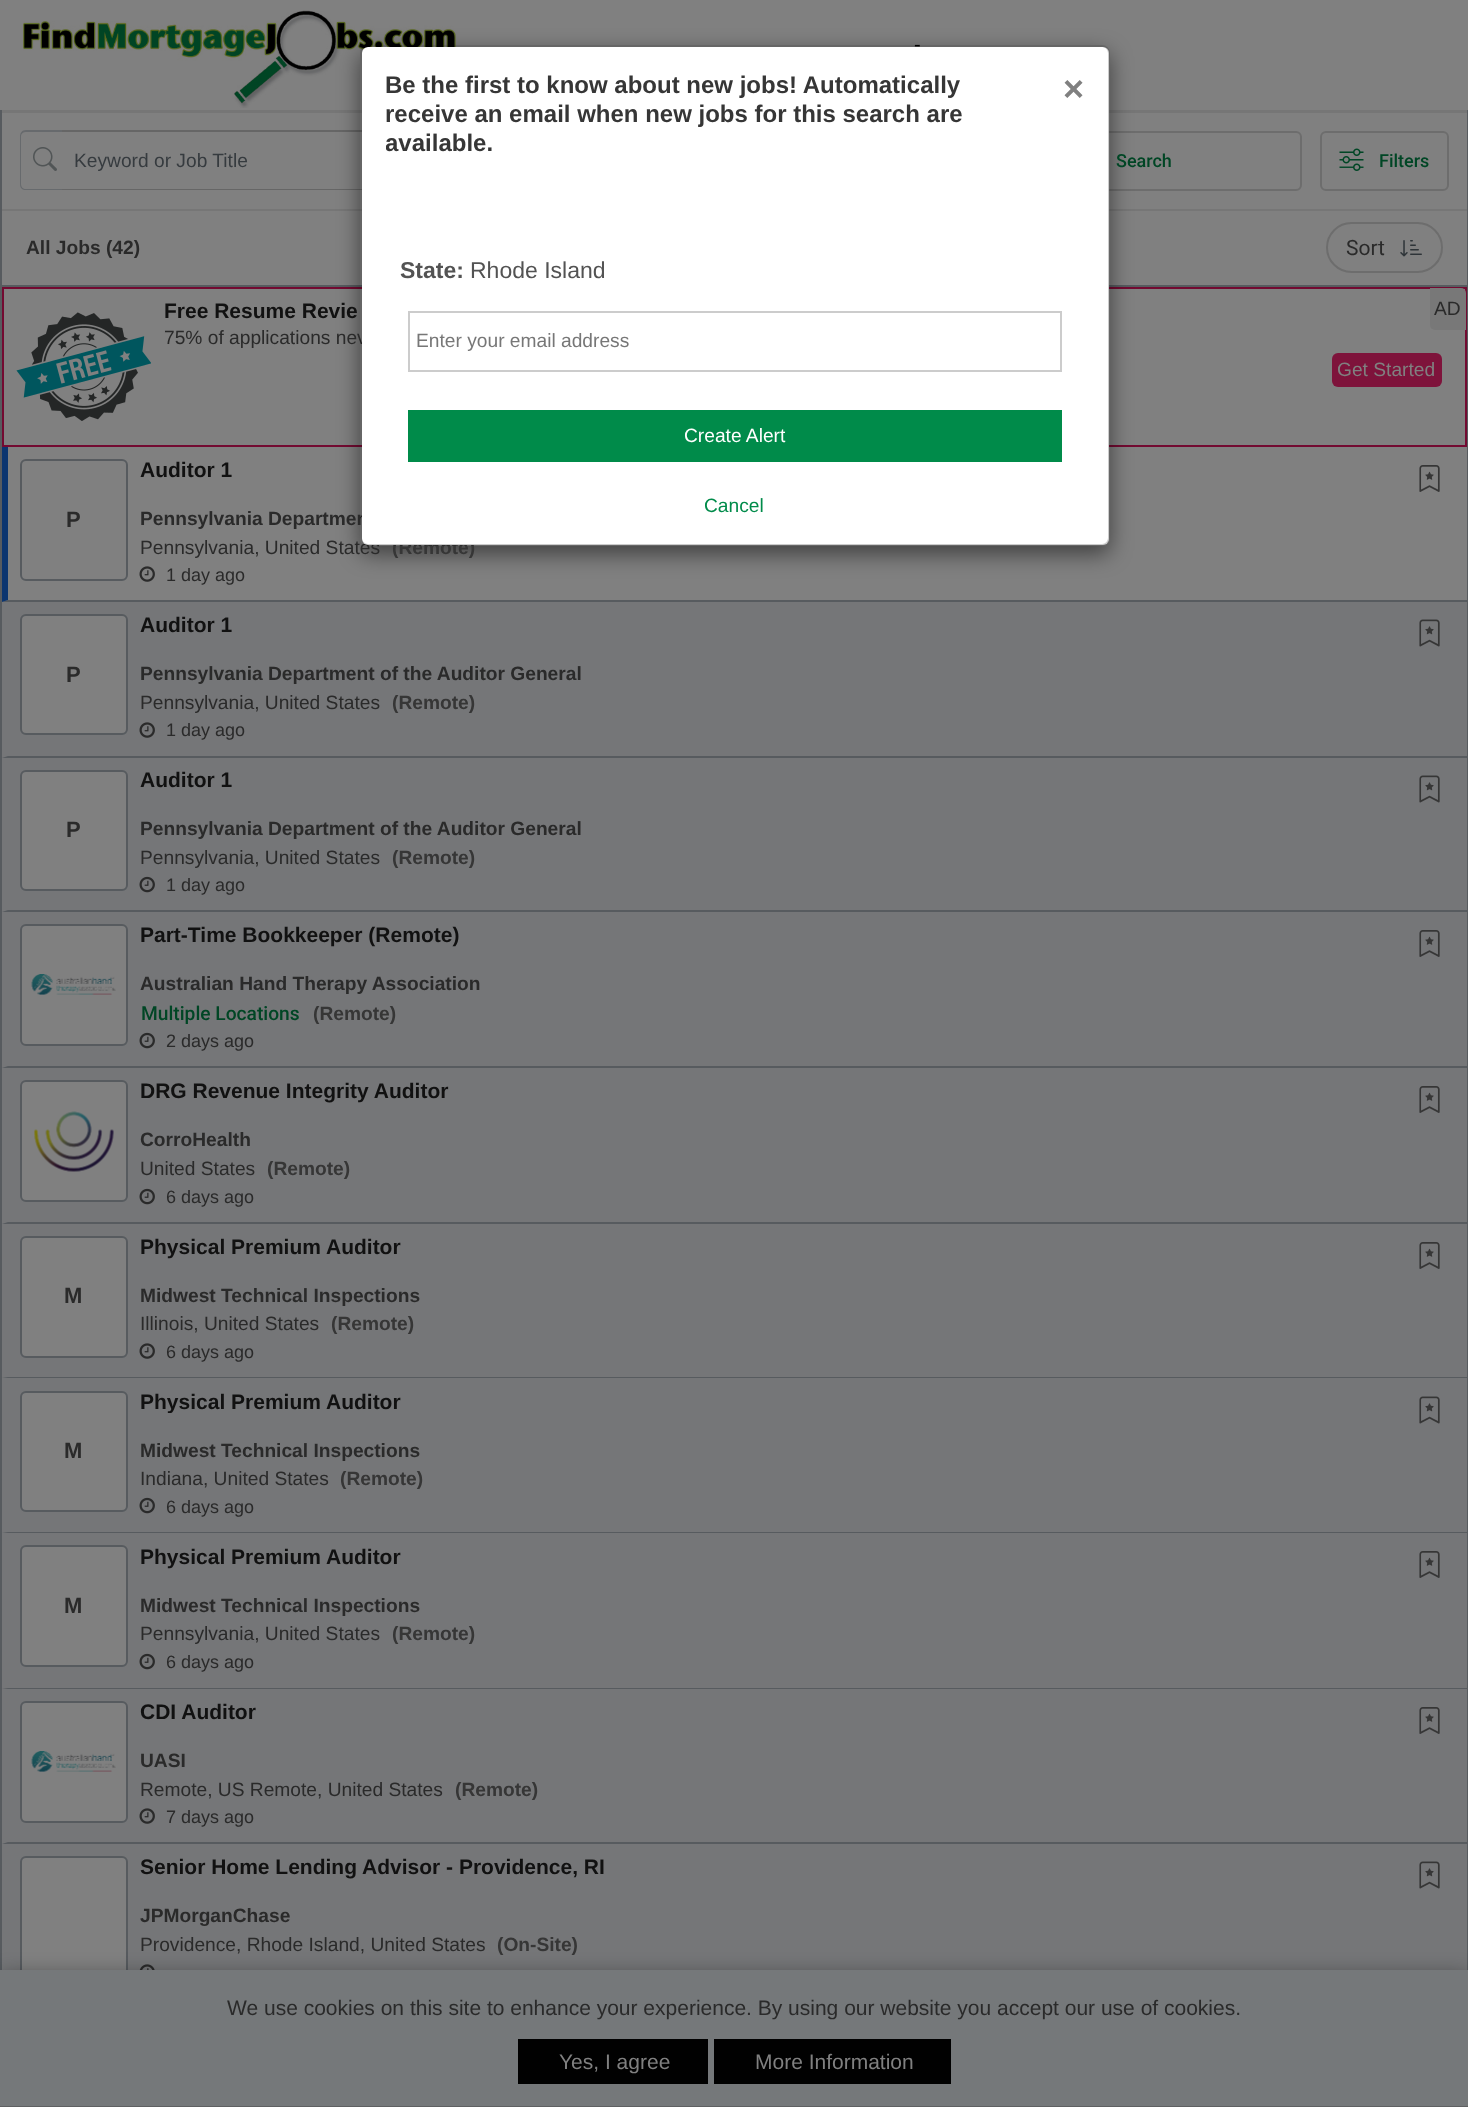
async function draw(canvas) {
	canvas.width = 1468;
	canvas.height = 2107;
	const c = canvas.getContext('2d');
	c.miterLimit = 4;
	c.fontKerning = 'normal';
	async function loadImage(src) {
		const img = new Image();
		img.src = src;
		await img.decode();
		return img;
	}

	c.fillStyle = '#808080';
	c.fillRect(0, 0, 1468, 2107);
	c.drawImage(await loadImage('img1.png'), 23, 10, 434, 98);
	c.font = '20px Liberation Sans';
	c.fillStyle = '#010101';
	c.fillText('-', 914, 51);
	for (const [x, y, w, h, color] of [
		[0, 110, 1468, 1, '#767676'],
		[2, 111, 1465, 2, '#767676'],
		[2, 209, 1465, 2, '#767676'],
	]) {
		c.fillStyle = color;
		c.fillRect(x, y, w, h);
	}
	c.fillStyle = '#676a6d';
	c.beginPath();
	c.moveTo(26, 130);
	c.lineTo(63, 130);
	c.lineTo(63, 190);
	c.lineTo(26, 190);
	c.bezierCurveTo(22, 190, 20, 188, 20, 184);
	c.lineTo(20, 136);
	c.bezierCurveTo(20, 133, 22, 130, 26, 130);
	c.closePath();
	c.moveTo(26, 132);
	c.lineTo(63, 132);
	c.lineTo(63, 189);
	c.lineTo(26, 189);
	c.bezierCurveTo(23, 189, 21, 187, 21, 184);
	c.lineTo(21, 136);
	c.bezierCurveTo(21, 134, 23, 132, 26, 132);
	c.closePath();
	c.fill('evenodd');
	c.fillStyle = '#666';
	c.beginPath();
	c.moveTo(62, 130);
	c.lineTo(478, 130);
	c.bezierCurveTo(482, 130, 484, 133, 484, 136);
	c.lineTo(484, 184);
	c.bezierCurveTo(484, 188, 482, 190, 478, 190);
	c.lineTo(62, 190);
	c.closePath();
	c.moveTo(62, 132);
	c.lineTo(478, 132);
	c.bezierCurveTo(481, 132, 483, 134, 483, 136);
	c.lineTo(483, 184);
	c.bezierCurveTo(483, 187, 481, 189, 478, 189);
	c.lineTo(62, 189);
	c.closePath();
	c.fill('evenodd');
	c.beginPath();
	c.roundRect(985, 132, 316, 58, 5);
	c.strokeStyle = '#6d6d6d';
	c.lineWidth = 2;
	c.stroke();
	c.fillStyle = '#575b5f';
	c.fillRect(2, 285, 1465, 2);
	c.strokeStyle = '#730a31';
	c.strokeRect(3, 288, 1463, 158);
	c.save();
	c.beginPath();
	c.moveTo(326, 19);
	c.lineTo(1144, 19);
	c.lineTo(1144, 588);
	c.lineTo(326, 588);
	c.closePath();
	c.moveTo(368, 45);
	c.lineTo(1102, 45);
	c.bezierCurveTo(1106.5, 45, 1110, 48.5, 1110, 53);
	c.lineTo(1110, 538);
	c.bezierCurveTo(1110, 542.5, 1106.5, 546, 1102, 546);
	c.lineTo(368, 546);
	c.bezierCurveTo(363.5, 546, 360, 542.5, 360, 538);
	c.lineTo(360, 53);
	c.bezierCurveTo(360, 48.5, 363.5, 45, 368, 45);
	c.closePath();
	c.clip('evenodd');
	c.fillStyle = '#00000080';
	c.filter = 'blur(11px)';
	c.beginPath();
	c.roundRect(360, 53, 750, 501, 8);
	c.fill();
	c.filter = 'none';
	c.restore();
	c.font = '19.2px Liberation Sans';
	c.fillStyle = '#2a2a2a';
	c.fillText('75% of applications nev', 164, 344);
	c.font = 'bold 19.2px Liberation Sans';
	c.fillText('Pennsylvania Departmen', 140, 525);
	c.font = '19.2px Liberation Sans';
	c.fillText('Pennsylvania, United States', 140, 554);
	c.font = 'bold 19.2px Liberation Sans';
	c.fillStyle = '#363636';
	c.fillText('(Remote)', 392, 554);
	c.fillStyle = '#fff';
	c.beginPath();
	c.roundRect(362, 47, 747, 498, 6);
	c.fill();
	c.beginPath();
	c.roundRect(361, 46, 748, 499, 7);
	c.strokeStyle = '#00000033';
	c.stroke();
	c.font = 'bold 24px Liberation Sans';
	c.fillStyle = '#363636';
	c.fillText('Be the first to know about new jobs! Automatically', 385, 93);
	c.fillText('receive an email when new jobs for this search are', 385, 122);
	c.save();
	c.beginPath();
	c.rect(386, 71, 652, 87);
	c.clip();
	c.fillText('available.', 385, 151);
	c.restore();
	c.font = 'bold 36px Liberation Sans';
	c.fillStyle = '#808080';
	c.fillText('×', 1063, 101);
	c.font = 'bold 23px Liberation Sans';
	c.fillStyle = '#535353';
	c.fillText('State:', 400, 278);
	c.font = '23px Liberation Sans';
	c.fillText('Rhode Island', 470, 278);
	c.strokeStyle = '#ccc';
	c.strokeRect(409, 312, 652, 59);
	c.font = '19.2px Liberation Sans';
	c.fillStyle = '#777';
	c.fillText('Enter your email address', 416, 347);
	c.fillStyle = '#008b4a';
	c.fillRect(408, 410, 654, 52);
	c.fillStyle = '#fff';
	c.fillText('Create Alert', 684, 442);
	c.fillStyle = '#008b4a';
	c.fillText('Cancel', 704, 512);
	for (const [x, y, w, h, color] of [
		[2, 602, 1465, 1368, '#757678'],
		[1467, 110, 1, 1860, '#575b5f'],
		[0, 110, 2, 1860, '#575b5f'],
	]) {
		c.fillStyle = color;
		c.fillRect(x, y, w, h);
	}
	c.drawImage(await loadImage('img2.png'), 33, 147, 24, 24);
	c.fillStyle = '#363b3f';
	c.fillText('Keyword or Job Title', 74, 167);
	c.font = '500 18px Roboto';
	c.fillStyle = '#004625';
	c.fillText('Search', 1116, 167);
	c.beginPath();
	c.roundRect(1321, 132, 127, 58, 5);
	c.strokeStyle = '#6d6d6d';
	c.stroke();
	c.drawImage(await loadImage('img3.png'), 1339, 148, 25, 23);
	c.fillText('Filters', 1379, 167);
	c.font = 'bold 19.2px Liberation Sans';
	c.fillStyle = '#2a2a2a';
	c.fillText('All Jobs (42)', 26, 254);
	c.beginPath();
	c.roundRect(1327, 223, 115, 49, 24.5);
	c.stroke();
	c.font = '21px Roboto';
	c.fillText('Sort', 1346, 255);
	c.drawImage(await loadImage('img4.png'), 1400, 240, 22, 17);
	c.drawImage(await loadImage('img5.png'), 16, 312, 135, 109);
	c.font = 'bold 21px Liberation Sans';
	c.fillStyle = '#111';
	c.fillText('Free Resume Revie', 164, 318);
	c.fillStyle = '#787878';
	c.beginPath();
	c.roundRect(1430, 288, 36, 42, [0, 5, 0, 5]);
	c.fill();
	c.font = '19.2px Liberation Sans';
	c.fillStyle = '#2a2a2a';
	c.fillText('AD', 1434, 315);
	c.fillStyle = '#7e133b';
	c.beginPath();
	c.roundRect(1332, 353, 110, 34, 6);
	c.fill();
	c.fillStyle = '#808080';
	c.fillText('Get Started', 1337, 376);
	c.fillStyle = '#575b5f';
	c.beginPath();
	c.moveTo(1467, 602);
	c.lineTo(2, 602);
	c.lineTo(8, 600);
	c.lineTo(1467, 600);
	c.closePath();
	c.fill();
	c.fillStyle = '#0c356f';
	c.beginPath();
	c.moveTo(2, 602);
	c.lineTo(2, 447);
	c.lineTo(8, 447);
	c.lineTo(8, 600);
	c.closePath();
	c.fill();
	c.beginPath();
	c.roundRect(21, 460, 106, 120, 5);
	c.strokeStyle = '#575b5f';
	c.stroke();
	c.font = 'bold 22px Liberation Sans';
	c.fillStyle = '#2a2a2a';
	c.fillText('P', 66, 527);
	c.font = 'bold 21px Liberation Sans';
	c.fillStyle = '#111';
	c.fillText('Auditor 1', 140, 477);
	c.drawImage(await loadImage('img6.png'), 1419, 465, 21, 27);
	c.drawImage(await loadImage('img7.png'), 139, 566, 16, 16);
	c.font = '18px Liberation Sans';
	c.fillStyle = '#2a2a2a';
	c.fillText('1 day ago', 166, 581);
	c.fillStyle = '#575b5f';
	c.beginPath();
	c.moveTo(1467, 758);
	c.lineTo(2, 758);
	c.lineTo(8, 756);
	c.lineTo(1467, 756);
	c.closePath();
	c.fill();
	c.fillStyle = '#808080';
	c.beginPath();
	c.roundRect(21, 615, 106, 119, 5);
	c.fill();
	c.stroke();
	c.font = 'bold 22px Liberation Sans';
	c.fillStyle = '#2a2a2a';
	c.fillText('P', 66, 682);
	c.font = 'bold 21px Liberation Sans';
	c.fillStyle = '#111';
	c.fillText('Auditor 1', 140, 632);
	c.drawImage(await loadImage('img8.png'), 1419, 619, 21, 28);
	c.font = 'bold 19.2px Liberation Sans';
	c.fillStyle = '#2a2a2a';
	c.fillText('Pennsylvania Department of the Auditor General', 140, 680);
	c.font = '19.2px Liberation Sans';
	c.fillText('Pennsylvania, United States', 140, 709);
	c.font = 'bold 19.2px Liberation Sans';
	c.fillStyle = '#363636';
	c.fillText('(Remote)', 392, 709);
	c.drawImage(await loadImage('img9.png'), 139, 722, 16, 16);
	c.font = '18px Liberation Sans';
	c.fillStyle = '#2a2a2a';
	c.fillText('1 day ago', 166, 736);
	c.fillStyle = '#575b5f';
	c.beginPath();
	c.moveTo(1467, 912);
	c.lineTo(2, 912);
	c.lineTo(8, 910);
	c.lineTo(1467, 910);
	c.closePath();
	c.fill();
	c.fillStyle = '#808080';
	c.beginPath();
	c.roundRect(21, 771, 106, 119, 5);
	c.fill();
	c.stroke();
	c.font = 'bold 22px Liberation Sans';
	c.fillStyle = '#2a2a2a';
	c.fillText('P', 66, 837);
	c.font = 'bold 21px Liberation Sans';
	c.fillStyle = '#111';
	c.fillText('Auditor 1', 140, 787);
	c.drawImage(await loadImage('img8.png'), 1419, 775, 21, 28);
	c.font = 'bold 19.2px Liberation Sans';
	c.fillStyle = '#2a2a2a';
	c.fillText('Pennsylvania Department of the Auditor General', 140, 835);
	c.font = '19.2px Liberation Sans';
	c.fillText('Pennsylvania, United States', 140, 864);
	c.font = 'bold 19.2px Liberation Sans';
	c.fillStyle = '#363636';
	c.fillText('(Remote)', 392, 864);
	c.drawImage(await loadImage('img10.png'), 139, 876, 16, 17);
	c.font = '18px Liberation Sans';
	c.fillStyle = '#2a2a2a';
	c.fillText('1 day ago', 166, 891);
	c.fillStyle = '#575b5f';
	c.beginPath();
	c.moveTo(1467, 1068);
	c.lineTo(2, 1068);
	c.lineTo(8, 1066);
	c.lineTo(1467, 1066);
	c.closePath();
	c.fill();
	c.fillStyle = '#808080';
	c.beginPath();
	c.roundRect(21, 925, 106, 120, 5);
	c.fill();
	c.stroke();
	c.drawImage(await loadImage('img11.png'), 31, 974, 85, 21);
	c.font = 'bold 21px Liberation Sans';
	c.fillStyle = '#111';
	c.fillText('Part-Time Bookkeeper (Remote)', 140, 942);
	c.drawImage(await loadImage('img12.png'), 1419, 930, 21, 27);
	c.font = 'bold 19.2px Liberation Sans';
	c.fillStyle = '#2a2a2a';
	c.fillText('Australian Hand Therapy Association', 140, 990);
	c.font = '500 19.2px Roboto';
	c.fillStyle = '#004625';
	c.fillText('Multiple Locations', 141, 1020);
	c.font = 'bold 19.2px Liberation Sans';
	c.fillStyle = '#363636';
	c.fillText('(Remote)', 313, 1020);
	c.drawImage(await loadImage('img10.png'), 139, 1032, 16, 17);
	c.font = '18px Liberation Sans';
	c.fillStyle = '#2a2a2a';
	c.fillText('2 days ago', 166, 1047);
	c.fillStyle = '#575b5f';
	c.beginPath();
	c.moveTo(1467, 1224);
	c.lineTo(2, 1224);
	c.lineTo(8, 1222);
	c.lineTo(1467, 1222);
	c.closePath();
	c.fill();
	c.fillStyle = '#808080';
	c.beginPath();
	c.roundRect(21, 1081, 106, 120, 5);
	c.fill();
	c.stroke();
	c.drawImage(await loadImage('img13.png'), 34, 1111, 80, 61);
	c.font = 'bold 21px Liberation Sans';
	c.fillStyle = '#111';
	c.fillText('DRG Revenue Integrity Auditor', 140, 1098);
	c.drawImage(await loadImage('img12.png'), 1419, 1086, 21, 27);
	c.font = 'bold 19.2px Liberation Sans';
	c.fillStyle = '#2a2a2a';
	c.fillText('CorroHealth', 140, 1146);
	c.font = '19.2px Liberation Sans';
	c.fillText('United States', 140, 1175);
	c.font = 'bold 19.2px Liberation Sans';
	c.fillStyle = '#363636';
	c.fillText('(Remote)', 267, 1175);
	c.drawImage(await loadImage('img10.png'), 139, 1188, 16, 17);
	c.font = '18px Liberation Sans';
	c.fillStyle = '#2a2a2a';
	c.fillText('6 days ago', 166, 1203);
	c.fillStyle = '#575b5f';
	c.beginPath();
	c.moveTo(1467, 1378);
	c.lineTo(2, 1378);
	c.lineTo(8, 1377);
	c.lineTo(1467, 1377);
	c.closePath();
	c.fill();
	c.fillStyle = '#808080';
	c.beginPath();
	c.roundRect(21, 1237, 106, 120, 5);
	c.fill();
	c.stroke();
	c.font = 'bold 22px Liberation Sans';
	c.fillStyle = '#2a2a2a';
	c.fillText('M', 64, 1303);
	c.font = 'bold 21px Liberation Sans';
	c.fillStyle = '#111';
	c.fillText('Physical Premium Auditor', 140, 1254);
	c.drawImage(await loadImage('img12.png'), 1419, 1242, 21, 27);
	c.font = 'bold 19.2px Liberation Sans';
	c.fillStyle = '#2a2a2a';
	c.fillText('Midwest Technical Inspections', 140, 1302);
	c.font = '19.2px Liberation Sans';
	c.fillText('Illinois, United States', 140, 1330);
	c.font = 'bold 19.2px Liberation Sans';
	c.fillStyle = '#363636';
	c.fillText('(Remote)', 331, 1330);
	c.drawImage(await loadImage('img9.png'), 139, 1343, 16, 16);
	c.font = '18px Liberation Sans';
	c.fillStyle = '#2a2a2a';
	c.fillText('6 days ago', 166, 1358);
	c.fillStyle = '#575b5f';
	c.beginPath();
	c.moveTo(1467, 1533);
	c.lineTo(2, 1533);
	c.lineTo(8, 1532);
	c.lineTo(1467, 1532);
	c.closePath();
	c.fill();
	c.fillStyle = '#808080';
	c.beginPath();
	c.roundRect(21, 1392, 106, 119, 5);
	c.fill();
	c.stroke();
	c.font = 'bold 22px Liberation Sans';
	c.fillStyle = '#2a2a2a';
	c.fillText('M', 64, 1458);
	c.save();
	c.beginPath();
	c.rect(128, 1391, 1168, 22);
	c.clip();
	c.font = 'bold 21px Liberation Sans';
	c.fillStyle = '#111';
	c.fillText('Physical Premium Auditor', 140, 1409);
	c.restore();
	c.drawImage(await loadImage('img8.png'), 1419, 1396, 21, 28);
	c.font = 'bold 19.2px Liberation Sans';
	c.fillText('Midwest Technical Inspections', 140, 1457);
	c.font = '19.2px Liberation Sans';
	c.fillText('Indiana, United States', 140, 1485);
	c.font = 'bold 19.2px Liberation Sans';
	c.fillStyle = '#363636';
	c.fillText('(Remote)', 340, 1485);
	c.drawImage(await loadImage('img10.png'), 139, 1497, 16, 17);
	c.font = '18px Liberation Sans';
	c.fillStyle = '#2a2a2a';
	c.fillText('6 days ago', 166, 1513);
	c.fillStyle = '#575b5f';
	c.beginPath();
	c.moveTo(1467, 1689);
	c.lineTo(2, 1689);
	c.lineTo(8, 1688);
	c.lineTo(1467, 1688);
	c.closePath();
	c.fill();
	c.fillStyle = '#808080';
	c.beginPath();
	c.roundRect(21, 1546, 106, 120, 5);
	c.fill();
	c.stroke();
	c.font = 'bold 22px Liberation Sans';
	c.fillStyle = '#2a2a2a';
	c.fillText('M', 64, 1613);
	c.font = 'bold 21px Liberation Sans';
	c.fillStyle = '#111';
	c.fillText('Physical Premium Auditor', 140, 1564);
	c.drawImage(await loadImage('img12.png'), 1419, 1551, 21, 27);
	c.font = 'bold 19.2px Liberation Sans';
	c.fillStyle = '#2a2a2a';
	c.fillText('Midwest Technical Inspections', 140, 1612);
	c.font = '19.2px Liberation Sans';
	c.fillText('Pennsylvania, United States', 140, 1640);
	c.font = 'bold 19.2px Liberation Sans';
	c.fillStyle = '#363636';
	c.fillText('(Remote)', 392, 1640);
	c.drawImage(await loadImage('img10.png'), 139, 1653, 16, 17);
	c.font = '18px Liberation Sans';
	c.fillStyle = '#2a2a2a';
	c.fillText('6 days ago', 166, 1668);
	c.fillStyle = '#575b5f';
	c.beginPath();
	c.moveTo(1467, 1844);
	c.lineTo(2, 1844);
	c.lineTo(8, 1842);
	c.lineTo(1467, 1842);
	c.closePath();
	c.fill();
	c.fillStyle = '#808080';
	c.beginPath();
	c.roundRect(21, 1702, 106, 120, 5);
	c.fill();
	c.stroke();
	c.drawImage(await loadImage('img11.png'), 31, 1751, 85, 21);
	c.font = 'bold 21px Liberation Sans';
	c.fillStyle = '#111';
	c.fillText('CDI Auditor', 140, 1719);
	c.drawImage(await loadImage('img12.png'), 1419, 1707, 21, 27);
	c.font = 'bold 19.2px Liberation Sans';
	c.fillStyle = '#2a2a2a';
	c.fillText('UASI', 140, 1767);
	c.font = '19.2px Liberation Sans';
	c.fillText('Remote, US Remote, United States', 140, 1796);
	c.font = 'bold 19.2px Liberation Sans';
	c.fillStyle = '#363636';
	c.fillText('(Remote)', 455, 1796);
	c.drawImage(await loadImage('img9.png'), 139, 1808, 16, 16);
	c.font = '18px Liberation Sans';
	c.fillStyle = '#2a2a2a';
	c.fillText('7 days ago', 166, 1823);
	c.fillStyle = '#808080';
	c.beginPath();
	c.roundRect(21, 1857, 106, 119, 5);
	c.fill();
	c.stroke();
	c.font = 'bold 21px Liberation Sans';
	c.fillStyle = '#111';
	c.fillText('Senior Home Lending Advisor - Providence, RI', 140, 1874);
	c.drawImage(await loadImage('img8.png'), 1419, 1861, 21, 28);
	c.font = 'bold 19.2px Liberation Sans';
	c.fillStyle = '#2a2a2a';
	c.fillText('JPMorganChase', 140, 1922);
	c.font = '19.2px Liberation Sans';
	c.fillText('Providence, Rhode Island, United States', 140, 1951);
	c.font = 'bold 19.2px Liberation Sans';
	c.fillStyle = '#363636';
	c.fillText('(On-Site)', 497, 1951);
	c.drawImage(await loadImage('img14.png'), 139, 1964, 16, 6);
	c.fillStyle = '#00000080';
	c.filter = 'blur(11px)';
	c.beginPath();
	c.rect(0, 1977, 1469, 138);
	c.fill();
	c.filter = 'none';
	c.fillStyle = '#75787a';
	c.fillRect(0, 1970, 1468, 136);
	c.fillStyle = '#5e6062';
	c.fillRect(0, 2106, 1468, 1);
	c.font = '21px Liberation Sans';
	c.fillStyle = '#2a2a2a';
	c.fillText('We use cookies on this site to enhance your experience. By using our website you accept our use of cookies.', 227, 2015);
	c.fillStyle = '#010101';
	c.fillRect(518, 2039, 190, 45);
	c.fillStyle = '#808080';
	c.fillText('Yes, I agree', 559, 2069);
	c.fillStyle = '#010101';
	c.fillRect(714, 2039, 237, 45);
	c.fillStyle = '#808080';
	c.fillText('More Information', 755, 2069);
}

draw(document.querySelector('canvas'));
